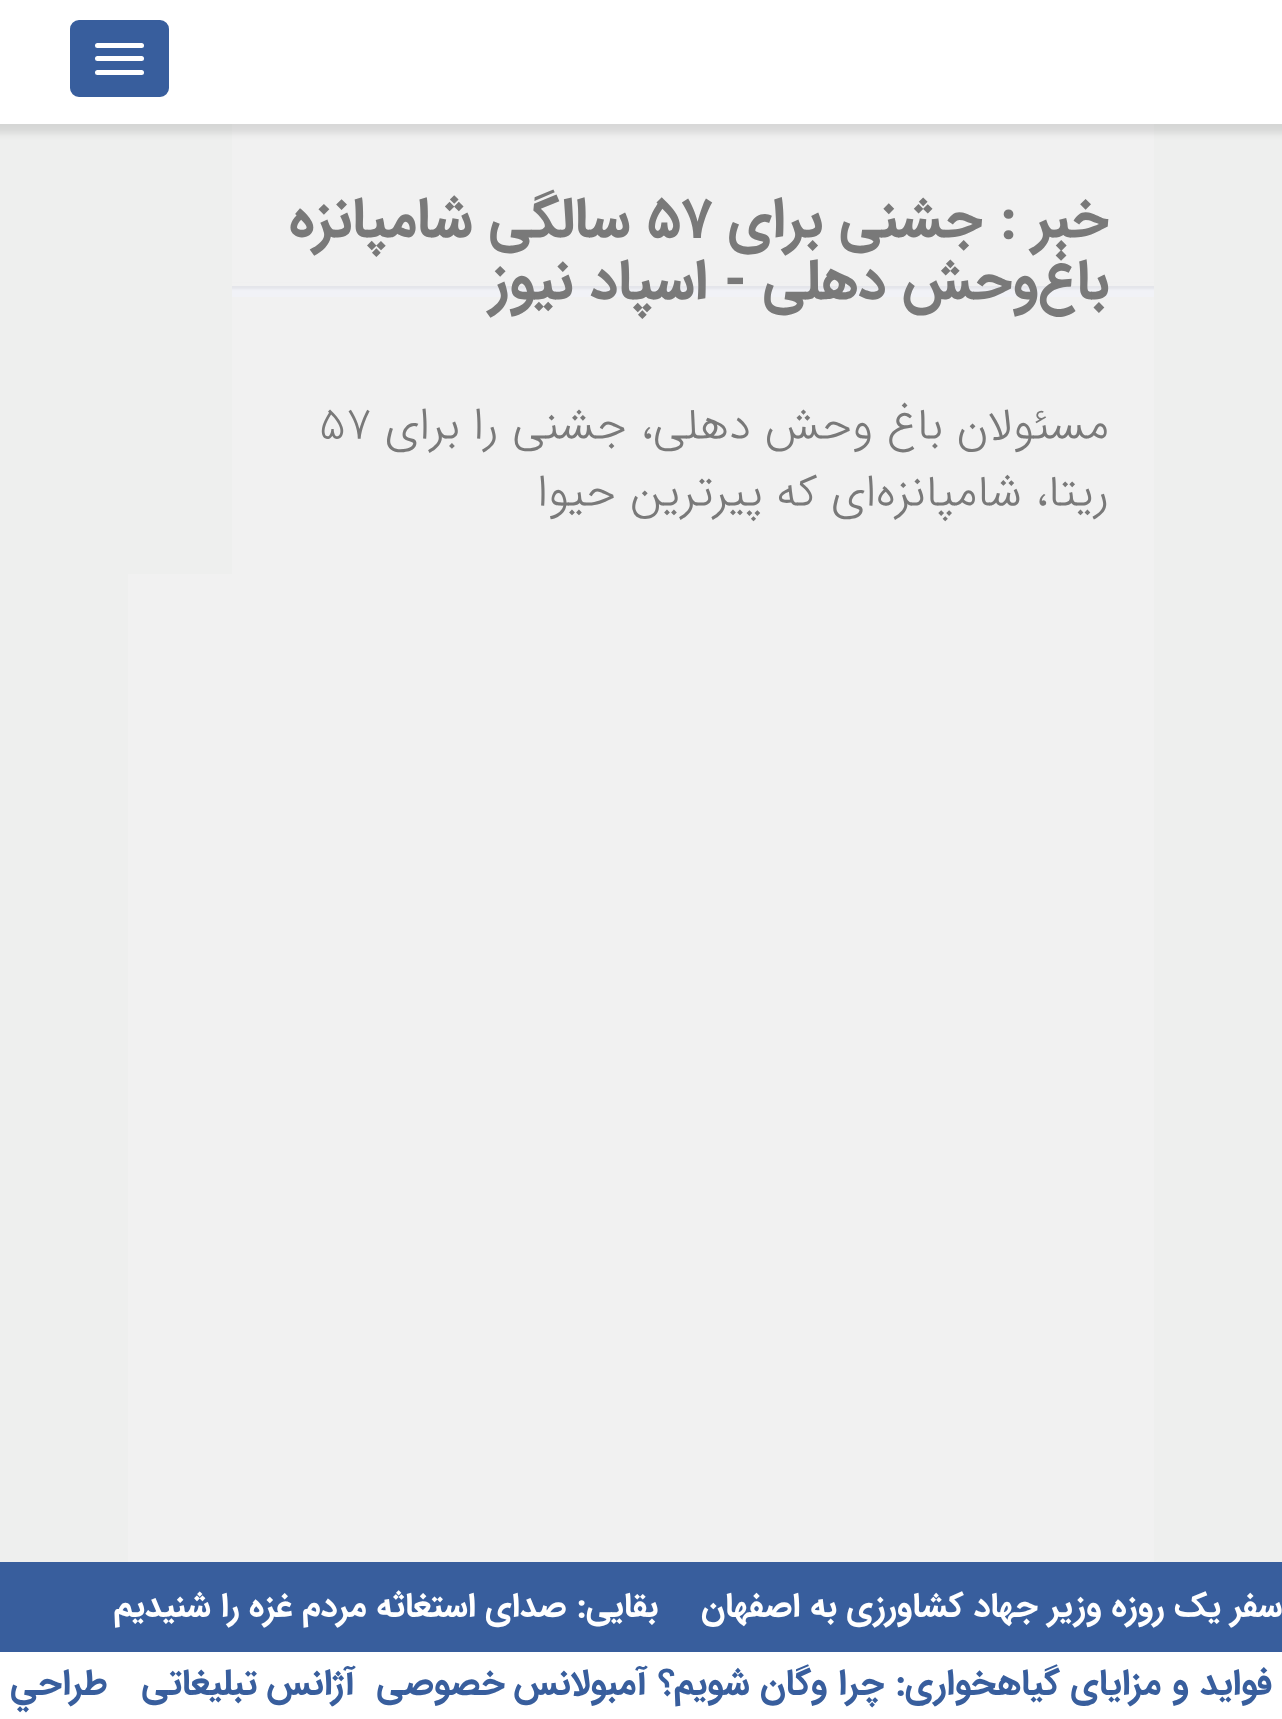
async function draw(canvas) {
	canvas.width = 1282;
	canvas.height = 1719;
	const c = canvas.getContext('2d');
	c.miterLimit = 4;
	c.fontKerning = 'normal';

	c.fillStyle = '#f1f1f1';
	c.fillRect(0, 0, 1282, 1719);
	c.fillStyle = '#f1f2f7';
	c.fillRect(232, 286, 922, 11);
	c.fillStyle = '#0000000d';
	c.filter = 'blur(1px)';
	c.beginPath();
	c.roundRect(0, 284, 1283, 5, 2.5);
	c.fill();
	c.filter = 'none';
	for (const [x, y, w, h, color] of [
		[1154, 124, 128, 1438, '#eeefee'],
		[128, 124, 104, 450, '#eeefee'],
		[0, 124, 128, 1438, '#eeefee'],
	]) {
		c.fillStyle = color;
		c.fillRect(x, y, w, h);
	}
	c.fillStyle = '#0000001a';
	c.filter = 'blur(3.5px)';
	c.beginPath();
	c.rect(-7, -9, 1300, 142);
	c.fill();
	c.filter = 'none';
	c.fillStyle = '#fff';
	c.fillRect(0, 0, 1282, 124);
	c.fillStyle = '#385e9d';
	c.beginPath();
	c.roundRect(71, 21, 97, 75, 8);
	c.fill();
	c.strokeStyle = '#385e9d';
	c.lineWidth = 2;
	c.stroke();
	c.fillStyle = '#fff';
	c.beginPath();
	c.roundRect(95, 43, 49, 5, 2.5);
	c.fill();
	c.beginPath();
	c.roundRect(95, 56, 49, 5, 2.5);
	c.fill();
	c.beginPath();
	c.roundRect(95, 70, 49, 5, 2.5);
	c.fill();
	c.fillStyle = '#f1f1f1';
	c.fillRect(232, 283, 922, 3);
	c.direction = 'rtl';
	c.font = 'bold 56.25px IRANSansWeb';
	c.fillStyle = '#797979';
	c.fillText('خبر : جشنی برای', 1109, 236);
	c.direction = 'ltr';
	c.fillText('۵۷', 647, 236);
	c.direction = 'rtl';
	c.fillText('سالگی شامپانزه', 630, 236);
	c.fillText('باغ‌وحش دهلی - اسپاد نیوز', 1109, 298);
	c.font = '300 45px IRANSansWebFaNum';
	c.fillText('مسئولان باغ وحش دهلی، جشنی را برای', 1109, 439);
	c.direction = 'ltr';
	c.fillText('۵۷', 319, 439);
	c.direction = 'rtl';
	c.fillText('ریتا، شامپانزه‌ای که پیرترین حیوا', 1109, 506);
	c.fillStyle = '#385e9d';
	c.fillRect(0, 1562, 1282, 90);
	c.font = 'bold 33.75px IRANSansWeb';
	c.fillStyle = '#fff';
	c.fillText('سفر یک روزه وزیر جهاد کشاورزی به اصفهان', 1282, 1616);
	c.fillText('بقایی: صدای استغاثه مردم غزه را شنیدیم', 658, 1616);
	c.fillRect(0, 1652, 1282, 67);
	c.font = 'bold 36px IRANSansWeb';
	c.fillStyle = '#385e9d';
	c.fillText('فواید و مزایای گیاهخواری: چرا وگان شویم؟', 1272, 1694);
	c.wordSpacing = '-2px';
	c.fillText('آمبولانس خصوصی', 647, 1694);
	c.wordSpacing = '-1px';
	c.fillText('آژانس تبلیغاتی', 355, 1694);
	c.wordSpacing = '0px';
	c.fillText('طراحي', 108, 1694);
}

draw(document.querySelector('canvas'));
